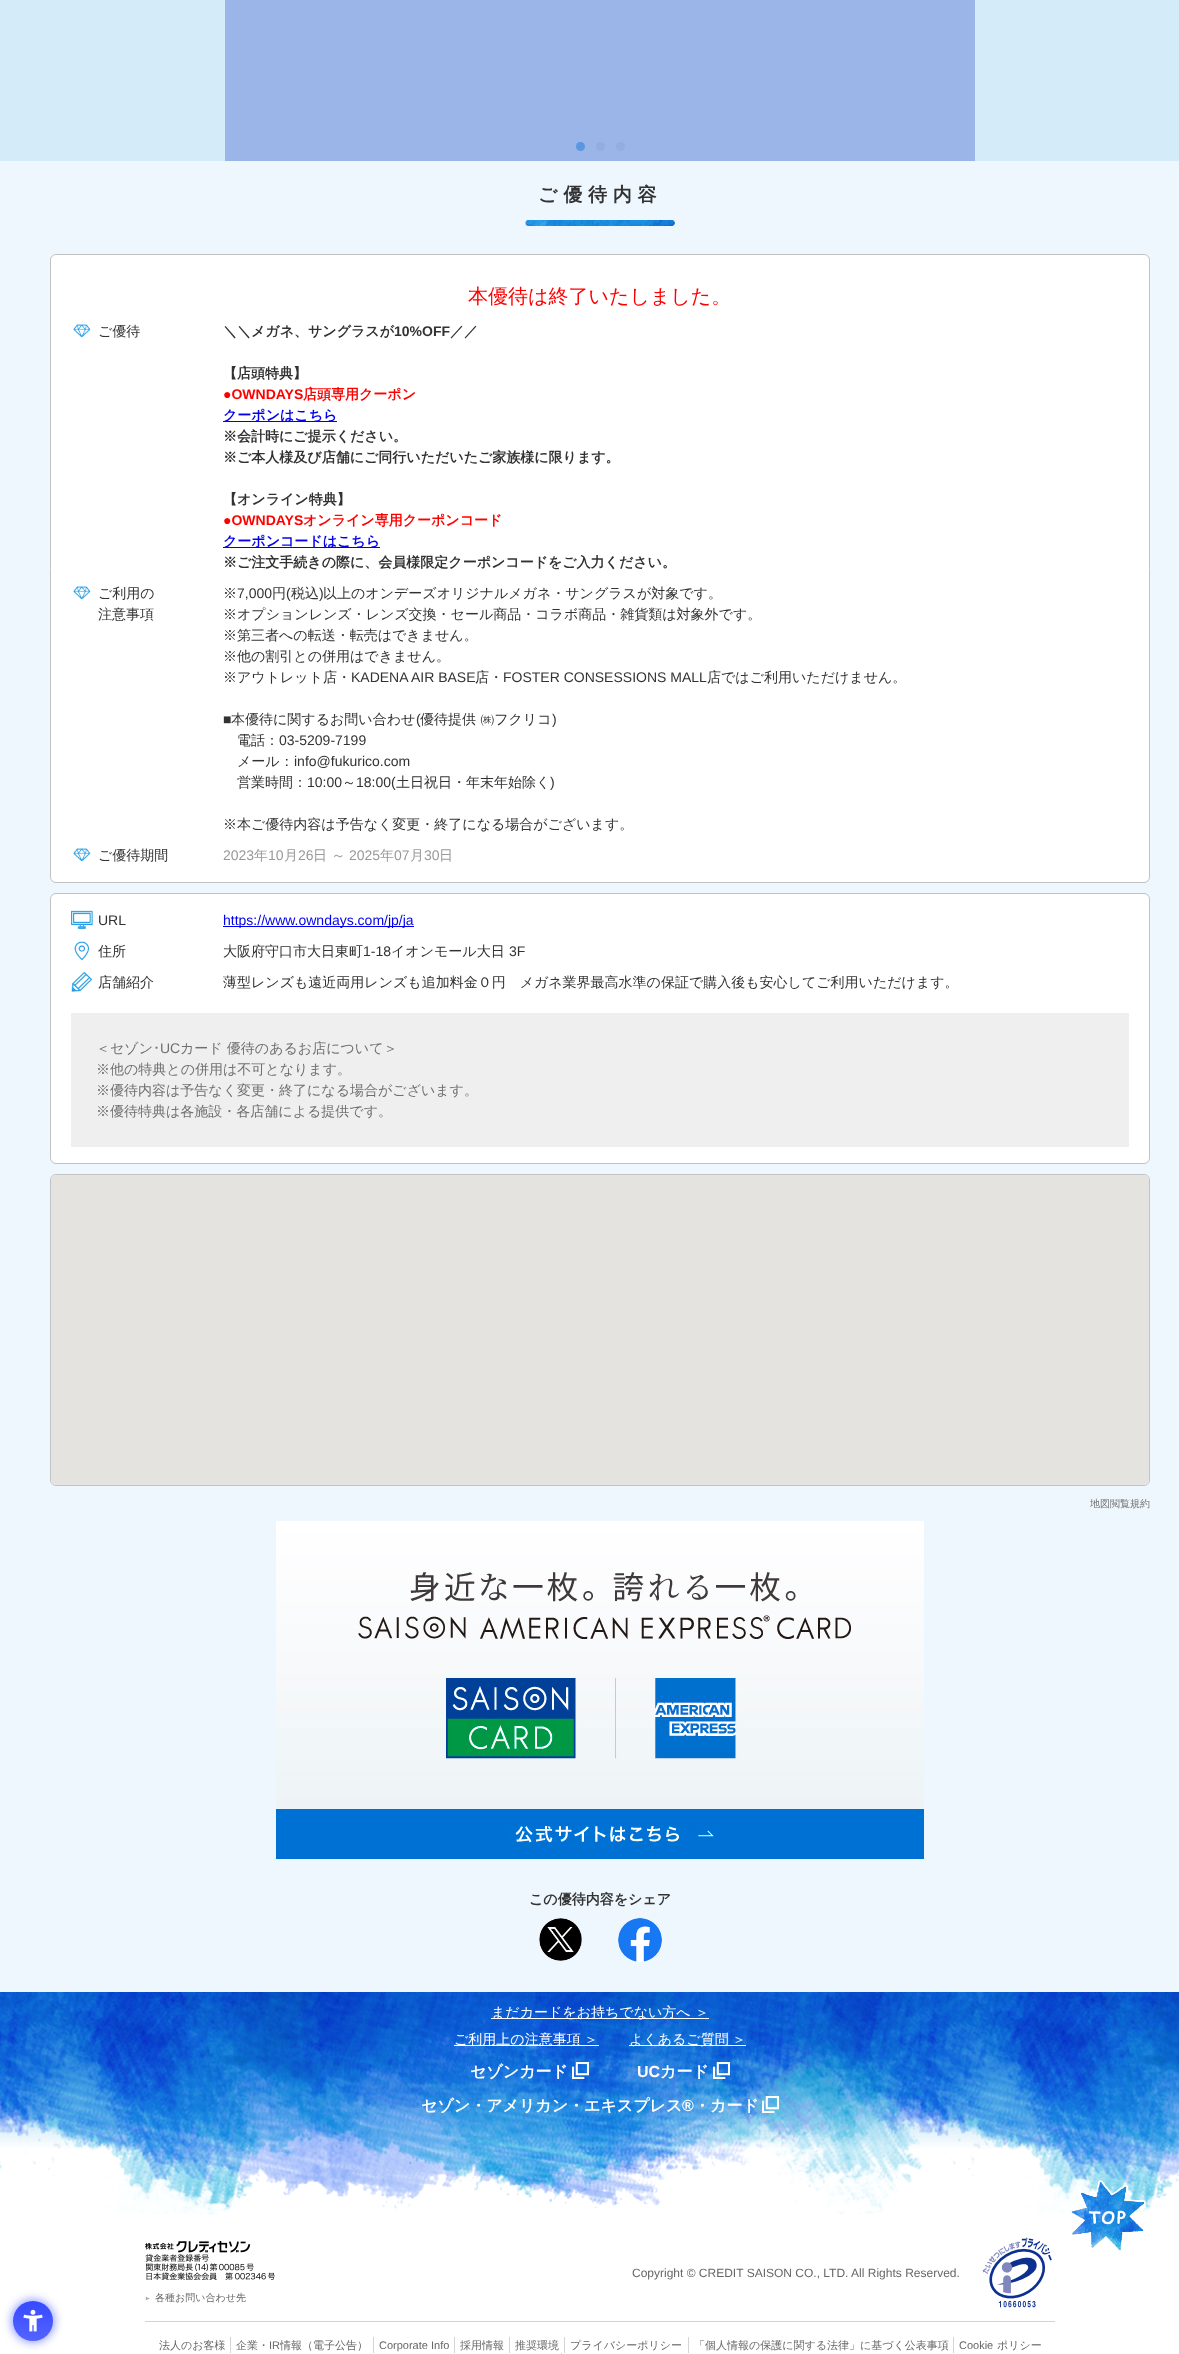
async function draw(canvas) {
	canvas.width = 1179;
	canvas.height = 2354;
	const c = canvas.getContext('2d');
	c.miterLimit = 4;
	c.fontKerning = 'normal';
	async function loadImage(src) {
		const img = new Image();
		img.src = src;
		await img.decode();
		return img;
	}
	let gradient;

	c.fillStyle = '#fff';
	c.fillRect(0, 0, 1179, 2354);
	c.fillStyle = '#3649ff80';
	c.filter = 'blur(4px)';
	c.beginPath();
	c.roundRect(11, 2299, 44, 44, 22);
	c.fill();
	c.filter = 'none';
	gradient = c.createLinearGradient(33, 2301, 33, 2341);
	gradient.addColorStop(0, '#3649ff');
	gradient.addColorStop(1, '#5464ff');
	c.fillStyle = gradient;
	c.beginPath();
	c.arc(33, 2321, 20, 0, 2 * Math.PI);
	c.fill();
	c.drawImage(await loadImage('img1.png'), 23, 2309, 20, 23);
	c.fillStyle = '#d4ebfa';
	c.fillRect(0, 0, 1179, 161);
	c.fillStyle = '#9bb5e9';
	c.fillRect(225, 0, 750, 161);
	c.fillStyle = '#5a97e1';
	c.beginPath();
	c.arc(580.5, 146.5, 4.5, 0, 2 * Math.PI);
	c.fill();
	c.fillStyle = '#93ade1';
	c.beginPath();
	c.arc(600.5, 146.5, 4.5, 0, 2 * Math.PI);
	c.fill();
	c.beginPath();
	c.arc(620.5, 146.5, 4.5, 0, 2 * Math.PI);
	c.fill();
	c.fillStyle = '#eef7fd';
	c.fillRect(0, 161, 1179, 1831);
	c.drawImage(await loadImage('img2.png'), 525, 220, 150, 6);
	c.letterSpacing = '5.75px';
	c.font = 'bold 19px WenQuanYi Zen Hei';
	c.fillStyle = '#323232';
	c.fillText('ご優待内容', 538, 201);
	c.fillStyle = '#fff';
	c.beginPath();
	c.roundRect(50.5, 254.5, 1099, 628, 5.5);
	c.fill();
	c.strokeStyle = '#c2c2c2';
	c.stroke();
	c.letterSpacing = '0px';
	c.font = '500 20px WenQuanYi Zen Hei';
	c.fillStyle = '#f00';
	c.fillText('本優待は終了いたしました。', 468, 303);
	c.drawImage(await loadImage('img3.png'), 73, 324, 18, 14);
	c.font = '500 14px WenQuanYi Zen Hei';
	c.fillStyle = '#323232';
	c.fillText('ご優待', 98, 336);
	c.font = 'bold 14px WenQuanYi Zen Hei';
	c.fillText('＼＼メガネ、サングラスが', 223, 336);
	c.font = 'bold 14px Liberation Sans';
	c.fillText('10%OFF', 394, 336);
	c.font = 'bold 14px WenQuanYi Zen Hei';
	c.fillText('／／', 450, 336);
	c.fillText('【店頭特典】', 223, 378);
	c.font = 'bold 14px Liberation Sans';
	c.fillStyle = '#f00';
	c.fillText('●OWNDAYS', 223, 399);
	c.font = 'bold 14px WenQuanYi Zen Hei';
	c.fillText('店頭専用クーポン', 303, 399);
	c.fillStyle = '#00e';
	c.fillRect(223, 421, 114, 1);
	c.fillText('クーポンはこちら', 223, 420);
	c.fillStyle = '#323232';
	for (const [text, x, y] of [
		['※会計時にご提示ください。', 223, 441],
		['※ご本人様及び店舗にご同行いただいたご家族様に限ります。', 223, 462],
		['【オンライン特典】', 223, 504],
	]) {
		c.fillText(text, x, y);
	}
	c.font = 'bold 14px Liberation Sans';
	c.fillStyle = '#f00';
	c.fillText('●OWNDAYS', 223, 525);
	c.font = 'bold 14px WenQuanYi Zen Hei';
	c.fillText('オンライン専用クーポンコード', 303, 525);
	c.fillStyle = '#00e';
	c.fillRect(223, 547, 157, 1);
	c.fillText('クーポンコードはこちら', 223, 546);
	c.fillStyle = '#323232';
	c.fillText('※ご注文手続きの際に、会員様限定クーポンコードをご入力ください。', 223, 567);
	c.drawImage(await loadImage('img4.png'), 73, 586, 18, 14);
	c.font = '500 14px WenQuanYi Zen Hei';
	for (const [text, x, y] of [
		['ご利用の', 98, 598],
		['注意事項', 98, 619],
		['※', 223, 598],
	]) {
		c.fillText(text, x, y);
	}
	c.font = '14px Liberation Sans';
	c.fillText('7,000', 237, 598);
	c.font = '500 14px WenQuanYi Zen Hei';
	c.fillText('円', 272, 598);
	c.font = '14px Liberation Sans';
	c.fillText('(', 286, 598);
	c.font = '500 14px WenQuanYi Zen Hei';
	c.fillText('税込', 291, 598);
	c.font = '14px Liberation Sans';
	c.fillText(')', 319, 598);
	c.font = '500 14px WenQuanYi Zen Hei';
	for (const [text, x, y] of [
		['以上のオンデーズオリジナルメガネ・サングラスが対象です。', 323, 598],
		['※オプションレンズ・レンズ交換・セール商品・コラボ商品・雑貨類は対象外です。', 223, 619],
		['※第三者への転送・転売はできません。', 223, 640],
		['※他の割引との併用はできません。', 223, 661],
		['※アウトレット店・', 223, 682],
	]) {
		c.fillText(text, x, y);
	}
	c.font = '14px Liberation Sans';
	c.fillText('KADENA AIR BASE', 351, 682);
	c.font = '500 14px WenQuanYi Zen Hei';
	c.fillText('店・', 475, 682);
	c.font = '14px Liberation Sans';
	c.fillText('FOSTER CONSESSIONS MALL', 503, 682);
	c.font = '500 14px WenQuanYi Zen Hei';
	c.fillText('店ではご利用いただけません。', 707, 682);
	c.font = '14px Liberation Sans';
	c.fillText('■', 223, 724);
	c.font = '500 14px WenQuanYi Zen Hei';
	c.fillText('本優待に関するお問い合わせ', 231, 724);
	c.font = '14px Liberation Sans';
	c.fillText('(', 416, 724);
	c.font = '500 14px WenQuanYi Zen Hei';
	c.fillText('優待提供 ㈱フクリコ', 420, 724);
	c.font = '14px Liberation Sans';
	c.fillText(')', 552, 724);
	c.font = '500 14px WenQuanYi Zen Hei';
	c.fillText('電話：', 237, 745);
	c.font = '14px Liberation Sans';
	c.fillText('03-5209-7199', 279, 745);
	c.font = '500 14px WenQuanYi Zen Hei';
	c.fillText('メール：', 237, 766);
	c.font = '14px Liberation Sans';
	c.fillText('info@fukurico.com', 294, 766);
	c.font = '500 14px WenQuanYi Zen Hei';
	c.fillText('営業時間：', 237, 787);
	c.font = '14px Liberation Sans';
	c.fillText('10:00', 307, 787);
	c.font = '500 14px WenQuanYi Zen Hei';
	c.fillText('～', 342, 787);
	c.font = '14px Liberation Sans';
	c.fillText('18:00(', 356, 787);
	c.font = '500 14px WenQuanYi Zen Hei';
	c.fillText('土日祝日・年末年始除く', 396, 787);
	c.font = '14px Liberation Sans';
	c.fillText(')', 550, 787);
	c.font = '500 14px WenQuanYi Zen Hei';
	c.fillText('※本ご優待内容は予告なく変更・終了になる場合がございます。', 223, 829);
	c.drawImage(await loadImage('img3.png'), 73, 848, 18, 14);
	c.fillText('ご優待期間', 98, 860);
	c.font = '14px Liberation Sans';
	c.fillStyle = '#999';
	c.fillText('2023', 223, 860);
	c.font = '500 14px WenQuanYi Zen Hei';
	c.fillText('年', 254, 860);
	c.font = '14px Liberation Sans';
	c.fillText('10', 268, 860);
	c.font = '500 14px WenQuanYi Zen Hei';
	c.fillText('月', 284, 860);
	c.font = '14px Liberation Sans';
	c.fillText('26', 298, 860);
	c.font = '500 14px WenQuanYi Zen Hei';
	c.fillText('日 ～', 313, 860);
	c.font = '14px Liberation Sans';
	c.fillText('2025', 349, 860);
	c.font = '500 14px WenQuanYi Zen Hei';
	c.fillText('年', 380, 860);
	c.font = '14px Liberation Sans';
	c.fillText('07', 394, 860);
	c.font = '500 14px WenQuanYi Zen Hei';
	c.fillText('月', 410, 860);
	c.font = '14px Liberation Sans';
	c.fillText('30', 424, 860);
	c.font = '500 14px WenQuanYi Zen Hei';
	c.fillText('日', 439, 860);
	c.fillStyle = '#fff';
	c.beginPath();
	c.roundRect(50.5, 893.5, 1099, 270, 5.5);
	c.fill();
	c.stroke();
	c.drawImage(await loadImage('img5.png'), 71, 910, 22, 19);
	c.font = '14px Liberation Sans';
	c.fillStyle = '#323232';
	c.fillText('URL', 98, 925);
	c.fillStyle = '#00e';
	c.fillRect(223, 926, 191, 1);
	c.fillText('https://www.owndays.com/jp/ja', 223, 925);
	c.drawImage(await loadImage('img6.png'), 74, 941, 15, 20);
	c.font = '500 14px WenQuanYi Zen Hei';
	c.fillStyle = '#323232';
	c.fillText('住所', 98, 956);
	c.fillText('大阪府守口市大日東町', 223, 956);
	c.font = '14px Liberation Sans';
	c.fillText('1-18', 363, 956);
	c.font = '500 14px WenQuanYi Zen Hei';
	c.fillText('イオンモール大日', 391, 956);
	c.font = '14px Liberation Sans';
	c.fillText('3F', 509, 956);
	c.drawImage(await loadImage('img7.png'), 71, 972, 22, 20);
	c.font = '500 14px WenQuanYi Zen Hei';
	c.fillText('店舗紹介', 98, 987);
	c.fillText('薄型レンズも遠近両用レンズも追加料金０円　メガネ業界最高水準の保証で購入後も安心してご利用いただけます。', 223, 987);
	c.fillStyle = '#efefef';
	c.fillRect(71, 1013, 1058, 134);
	c.fillStyle = '#707070';
	c.fillText('＜セゾン', 96, 1053);
	c.font = '14px IPAPGothic';
	c.fillText('･', 153, 1053);
	c.font = '14px Liberation Sans';
	c.fillText('UC', 160, 1053);
	c.font = '500 14px WenQuanYi Zen Hei';
	for (const [text, x, y] of [
		['カード 優待のあるお店について＞', 180, 1053],
		['※他の特典との併用は不可となります。', 96, 1074],
		['※優待内容は予告なく変更・終了になる場合がございます。', 96, 1095],
		['※優待特典は各施設・各店舗による提供です。', 96, 1116],
	]) {
		c.fillText(text, x, y);
	}
	c.beginPath();
	c.roundRect(50.5, 1174.5, 1099, 311, 5.5);
	c.stroke();
	c.fillStyle = '#e5e3df';
	c.beginPath();
	c.roundRect(51, 1175, 1098, 310, 5);
	c.fill();
	c.font = '500 10px WenQuanYi Zen Hei';
	c.fillStyle = '#707070';
	c.fillText('地図閲覧規約', 1090, 1507);
	c.drawImage(await loadImage('img8.png'), 276, 1521, 648, 338);
	c.font = 'bold 14px WenQuanYi Zen Hei';
	c.fillStyle = '#323232';
	c.fillText('この優待内容をシェア', 529, 1904);
	c.drawImage(await loadImage('img9.png'), 539, 1918, 43, 43);
	c.drawImage(await loadImage('img10.png'), 618, 1918, 44, 44);
	c.drawImage(await loadImage('img11.png'), 0, 1992, 1179, 223);
	c.fillStyle = '#fff';
	c.fillRect(491, 2018, 218, 1);
	c.font = '500 14px WenQuanYi Zen Hei';
	c.fillText('まだカードをお持ちでない⽅へ', 491, 2017);
	c.fillText('＞', 695, 2017);
	c.fillRect(454, 2045, 145, 1);
	c.fillText('ご利用上の注意事項', 454, 2044);
	c.fillText('＞', 584, 2044);
	c.fillRect(629, 2045, 117, 1);
	c.fillText('よくあるご質問', 629, 2044);
	c.fillText('＞', 732, 2044);
	c.font = 'bold 16px WenQuanYi Zen Hei';
	c.fillText('セゾンカード', 470, 2077);
	c.drawImage(await loadImage('img12.png'), 572, 2062, 17, 17);
	c.font = 'bold 16px Liberation Sans';
	c.fillText('UC', 637, 2077);
	c.font = 'bold 16px WenQuanYi Zen Hei';
	c.fillText('カード', 660, 2077);
	c.drawImage(await loadImage('img13.png'), 713, 2062, 17, 17);
	c.fillText('セゾン・アメリカン・エキスプレス', 421, 2111);
	c.font = 'bold 16px Liberation Sans';
	c.fillText('®', 682, 2111);
	c.font = 'bold 16px WenQuanYi Zen Hei';
	c.fillText('・カード', 694, 2111);
	c.drawImage(await loadImage('img14.png'), 762, 2096, 17, 17);
	c.drawImage(await loadImage('img15.png'), 1071, 2180, 75, 70);
	c.font = '12px Liberation Sans';
	c.fillStyle = '#666';
	c.fillText('Copyright © CREDIT SAISON CO., LTD. All Rights Reserved.', 632, 2277);
	c.drawImage(await loadImage('img16.png'), 982, 2237, 70, 72);
	c.drawImage(await loadImage('img17.png'), 145, 2241, 130, 39);
	c.drawImage(await loadImage('img18.png'), 145, 2296, 5, 5);
	c.font = '500 10px WenQuanYi Zen Hei';
	c.fillText('各種お問い合わせ先', 155, 2301);
	c.fillStyle = '#d4d4d4';
	c.fillRect(145, 2321, 910, 1);
	c.font = '500 11px WenQuanYi Zen Hei';
	c.fillStyle = '#666';
	c.fillText('法人のお客様', 159, 2349);
	c.fillStyle = '#d4d4d4';
	c.fillRect(230, 2337, 1, 16);
	c.fillStyle = '#666';
	c.fillText('企業・', 236, 2349);
	c.font = '11px Liberation Sans';
	c.fillText('IR', 269, 2349);
	c.font = '500 11px WenQuanYi Zen Hei';
	c.fillText('情報（電子公告）', 280, 2349);
	c.fillStyle = '#d4d4d4';
	c.fillRect(373, 2337, 1, 16);
	c.font = '11px Liberation Sans';
	c.fillStyle = '#666';
	c.fillText('Corporate Info', 379, 2349);
	c.fillStyle = '#d4d4d4';
	c.fillRect(454, 2337, 1, 16);
	c.font = '500 11px WenQuanYi Zen Hei';
	c.fillStyle = '#666';
	c.fillText('採用情報', 460, 2349);
	c.fillStyle = '#d4d4d4';
	c.fillRect(509, 2337, 1, 16);
	c.fillStyle = '#666';
	c.fillText('推奨環境', 515, 2349);
	c.fillStyle = '#d4d4d4';
	c.fillRect(564, 2337, 1, 16);
	c.fillStyle = '#666';
	c.fillText('プライバシーポリシー', 570, 2349);
	c.fillStyle = '#d4d4d4';
	c.fillRect(688, 2337, 1, 16);
	c.fillStyle = '#666';
	c.fillText('「個人情報の保護に関する法律」に基づく公表事項', 694, 2349);
	c.fillStyle = '#d4d4d4';
	c.fillRect(953, 2337, 1, 16);
	c.font = '11px Liberation Sans';
	c.fillStyle = '#666';
	c.fillText('Cookie', 959, 2349);
	c.font = '500 11px WenQuanYi Zen Hei';
	c.fillText('ポリシー', 997, 2349);
	c.fillStyle = '#d4d4d4';
	c.fillRect(561, 2353, 1, 1);
}

draw(document.querySelector('canvas'));
